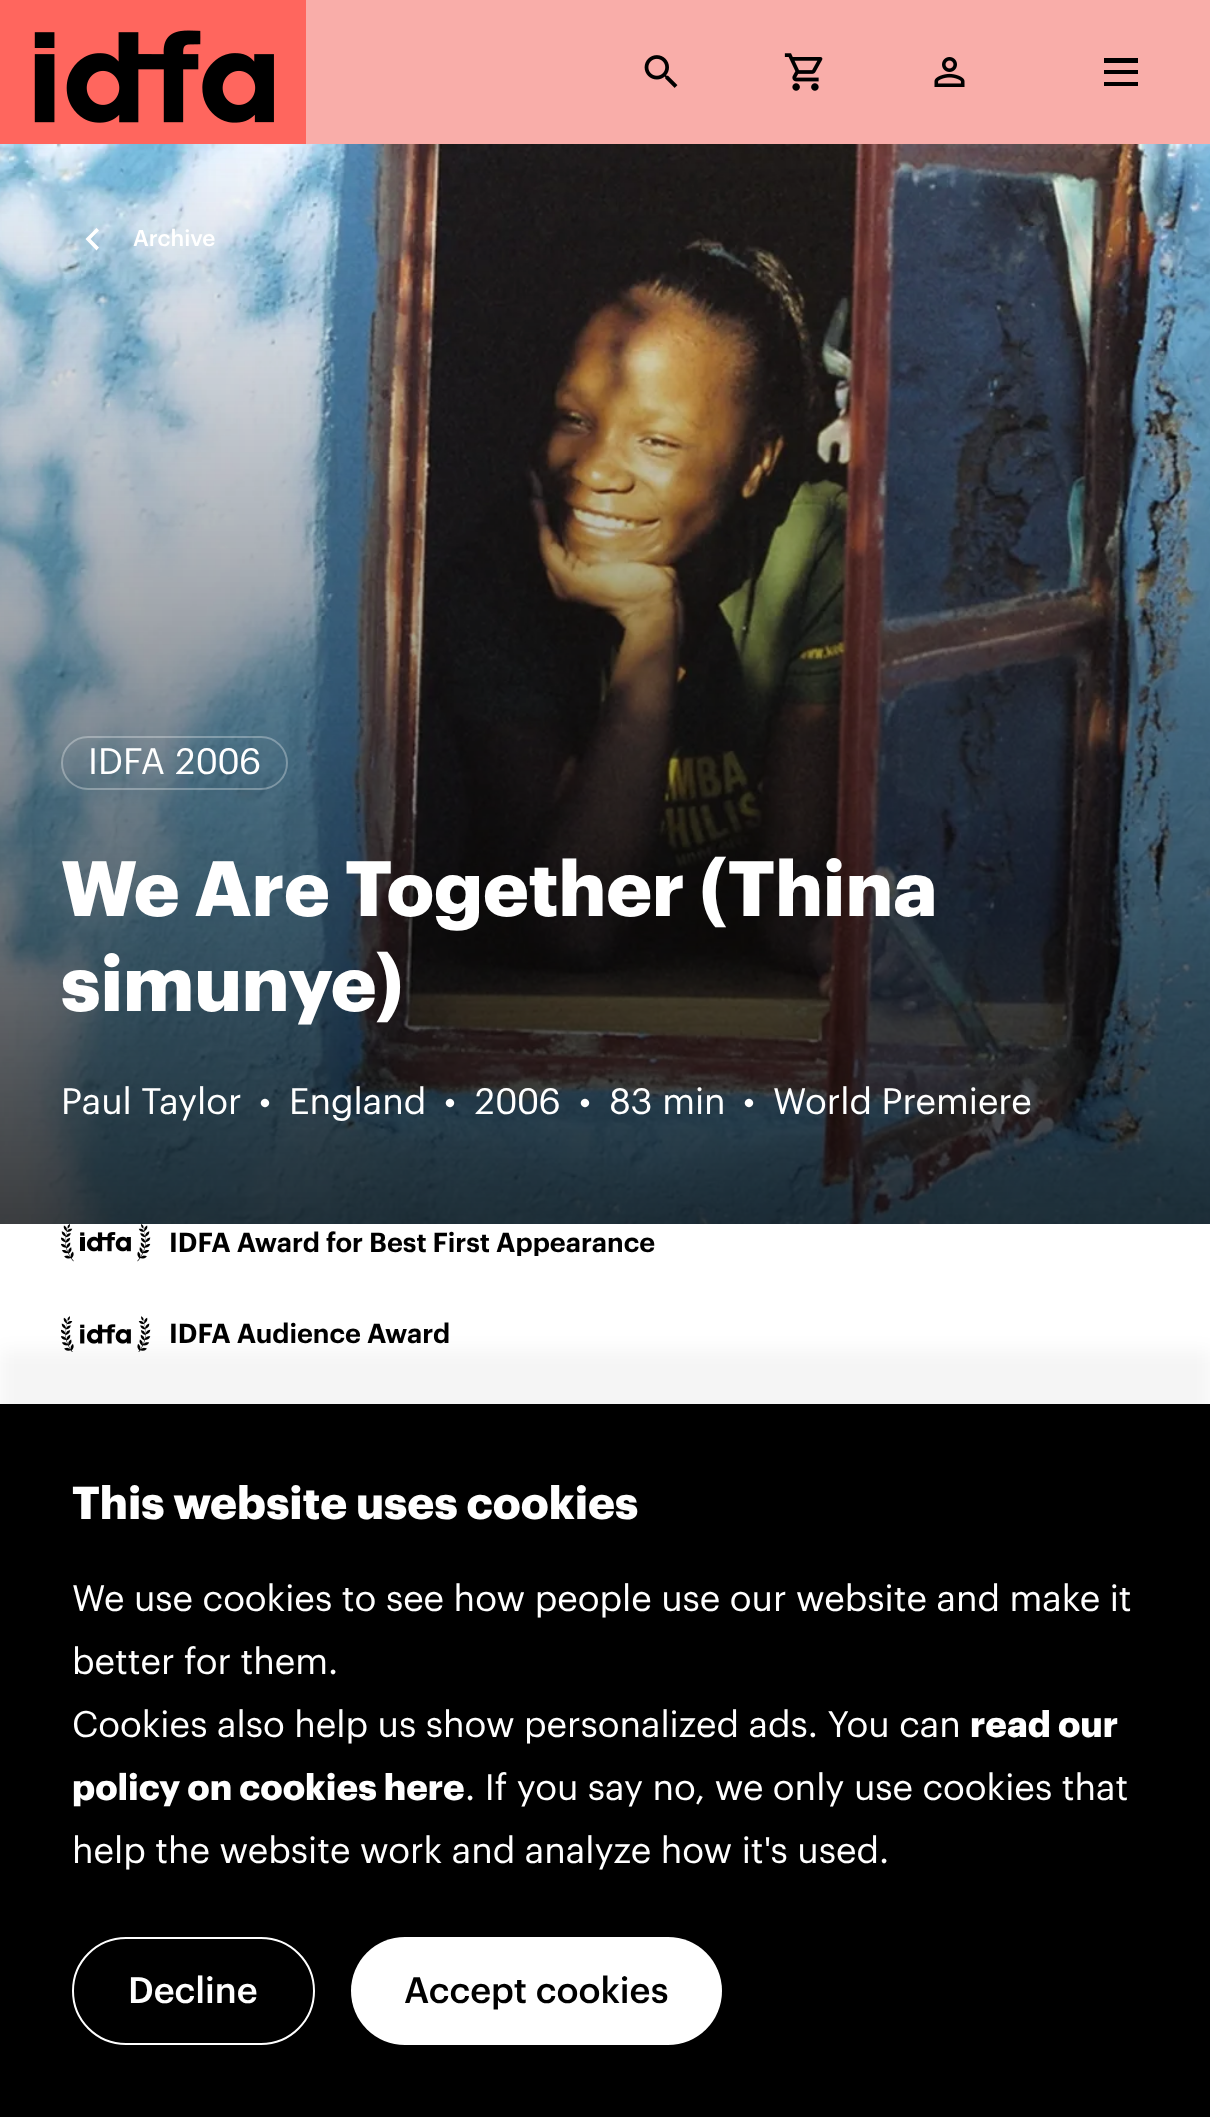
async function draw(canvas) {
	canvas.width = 1210;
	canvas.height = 2117;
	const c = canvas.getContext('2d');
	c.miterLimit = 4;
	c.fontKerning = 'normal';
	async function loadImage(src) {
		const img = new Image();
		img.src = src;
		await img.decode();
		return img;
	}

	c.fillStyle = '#fff';
	c.fillRect(0, 0, 1210, 2117);
	c.fillStyle = '#ff665e';
	c.fillRect(0, 0, 306, 144);
	c.drawImage(await loadImage('img1.png'), 34, 30, 240, 93);
	c.fillStyle = '#f9ada9';
	c.fillRect(306, 0, 904, 144);
	c.drawImage(await loadImage('img2.png'), 644, 55, 34, 33);
	c.drawImage(await loadImage('img3.png'), 784, 53, 39, 38);
	c.drawImage(await loadImage('img4.png'), 934, 57, 31, 30);
	for (const [x, y, w, h, color] of [
		[1104, 58, 34, 5, '#000'],
		[1104, 70, 34, 4, '#000'],
		[1104, 82, 34, 4, '#000'],
	]) {
		c.fillStyle = color;
		c.fillRect(x, y, w, h);
	}
	c.drawImage(await loadImage('img5.png'), 0, 144, 1210, 1080);
	c.fillStyle = '#fff';
	c.beginPath();
	c.moveTo(99, 230.5);
	c.lineTo(90.5, 239);
	c.lineTo(99, 247.5);
	c.lineTo(96.5, 250.5);
	c.lineTo(85.5, 239);
	c.lineTo(96.5, 228);
	c.closePath();
	c.fill();
	c.font = '500 22.5px Graphik';
	c.fillText('Archive', 133, 246);
	c.beginPath();
	c.roundRect(62, 737, 225, 52, 26);
	c.strokeStyle = '#ffffff4d';
	c.lineWidth = 2;
	c.stroke();
	c.font = '36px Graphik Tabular';
	c.fillText('IDFA 2006', 88, 774);
	c.font = 'bold 76.5px Graphik';
	c.fillText('We Are Together (Thina', 61, 916);
	c.fillText('simunye)', 61, 1011);
	c.font = '36px Graphik';
	for (const [text, x, y] of [
		['Paul Taylor', 61, 1114],
		['•', 259, 1114],
		['England', 289, 1114],
		['•', 444, 1114],
	]) {
		c.fillText(text, x, y);
	}
	c.font = '36px Graphik Tabular';
	c.fillText('2006', 474, 1114);
	c.font = '36px Graphik';
	for (const [text, x, y] of [
		['•', 579, 1114],
		['83 min', 609, 1114],
		['•', 743, 1114],
		['World Premiere', 773, 1114],
	]) {
		c.fillText(text, x, y);
	}
	c.drawImage(await loadImage('img6.png'), 61, 1224, 90, 38);
	c.save();
	c.beginPath();
	c.rect(169, 1229, 486, 27);
	c.clip();
	c.font = '600 27px Graphik';
	c.fillStyle = '#000';
	c.fillText('IDFA Award for Best First Appearance', 169, 1252);
	c.restore();
	c.drawImage(await loadImage('img7.png'), 61, 1316, 90, 36);
	c.font = '600 27px Graphik';
	c.fillStyle = '#000';
	c.fillText('IDFA Audience Award', 169, 1343);
	c.fillStyle = '#0000000a';
	c.filter = 'blur(9px)';
	c.beginPath();
	c.rect(0, 1350, 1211, 713);
	c.fill();
	c.filter = 'none';
	c.fillStyle = '#000';
	c.fillRect(0, 1404, 1210, 713);
	c.font = 'bold 45px Graphik';
	c.fillStyle = '#fff';
	c.fillText('This website uses cookies', 72, 1519);
	c.font = '36px Graphik';
	for (const [text, x, y] of [
		['We use cookies to see how people use our website and make it', 72, 1611],
		['better for them.', 72, 1674],
		['Cookies also help us show personalized ads. You can', 72, 1737],
	]) {
		c.fillText(text, x, y);
	}
	c.font = 'bold 36px Graphik';
	c.fillText('read our', 970, 1737);
	c.fillText('policy on cookies here', 72, 1800);
	c.font = '36px Graphik';
	c.fillText('. If you say no, we only use cookies that', 465, 1800);
	c.fillText('help the website work and analyze how it\'s used.', 72, 1863);
	c.beginPath();
	c.roundRect(73, 1938, 241, 106, 53);
	c.strokeStyle = '#fff';
	c.stroke();
	c.font = '500 36px Graphik';
	c.fillText('Decline', 128, 2003);
	c.beginPath();
	c.roundRect(351, 1937, 371, 108, 54);
	c.fill();
	c.fillStyle = '#000';
	c.fillText('Accept cookies', 404, 2003);
}

draw(document.querySelector('canvas'));
